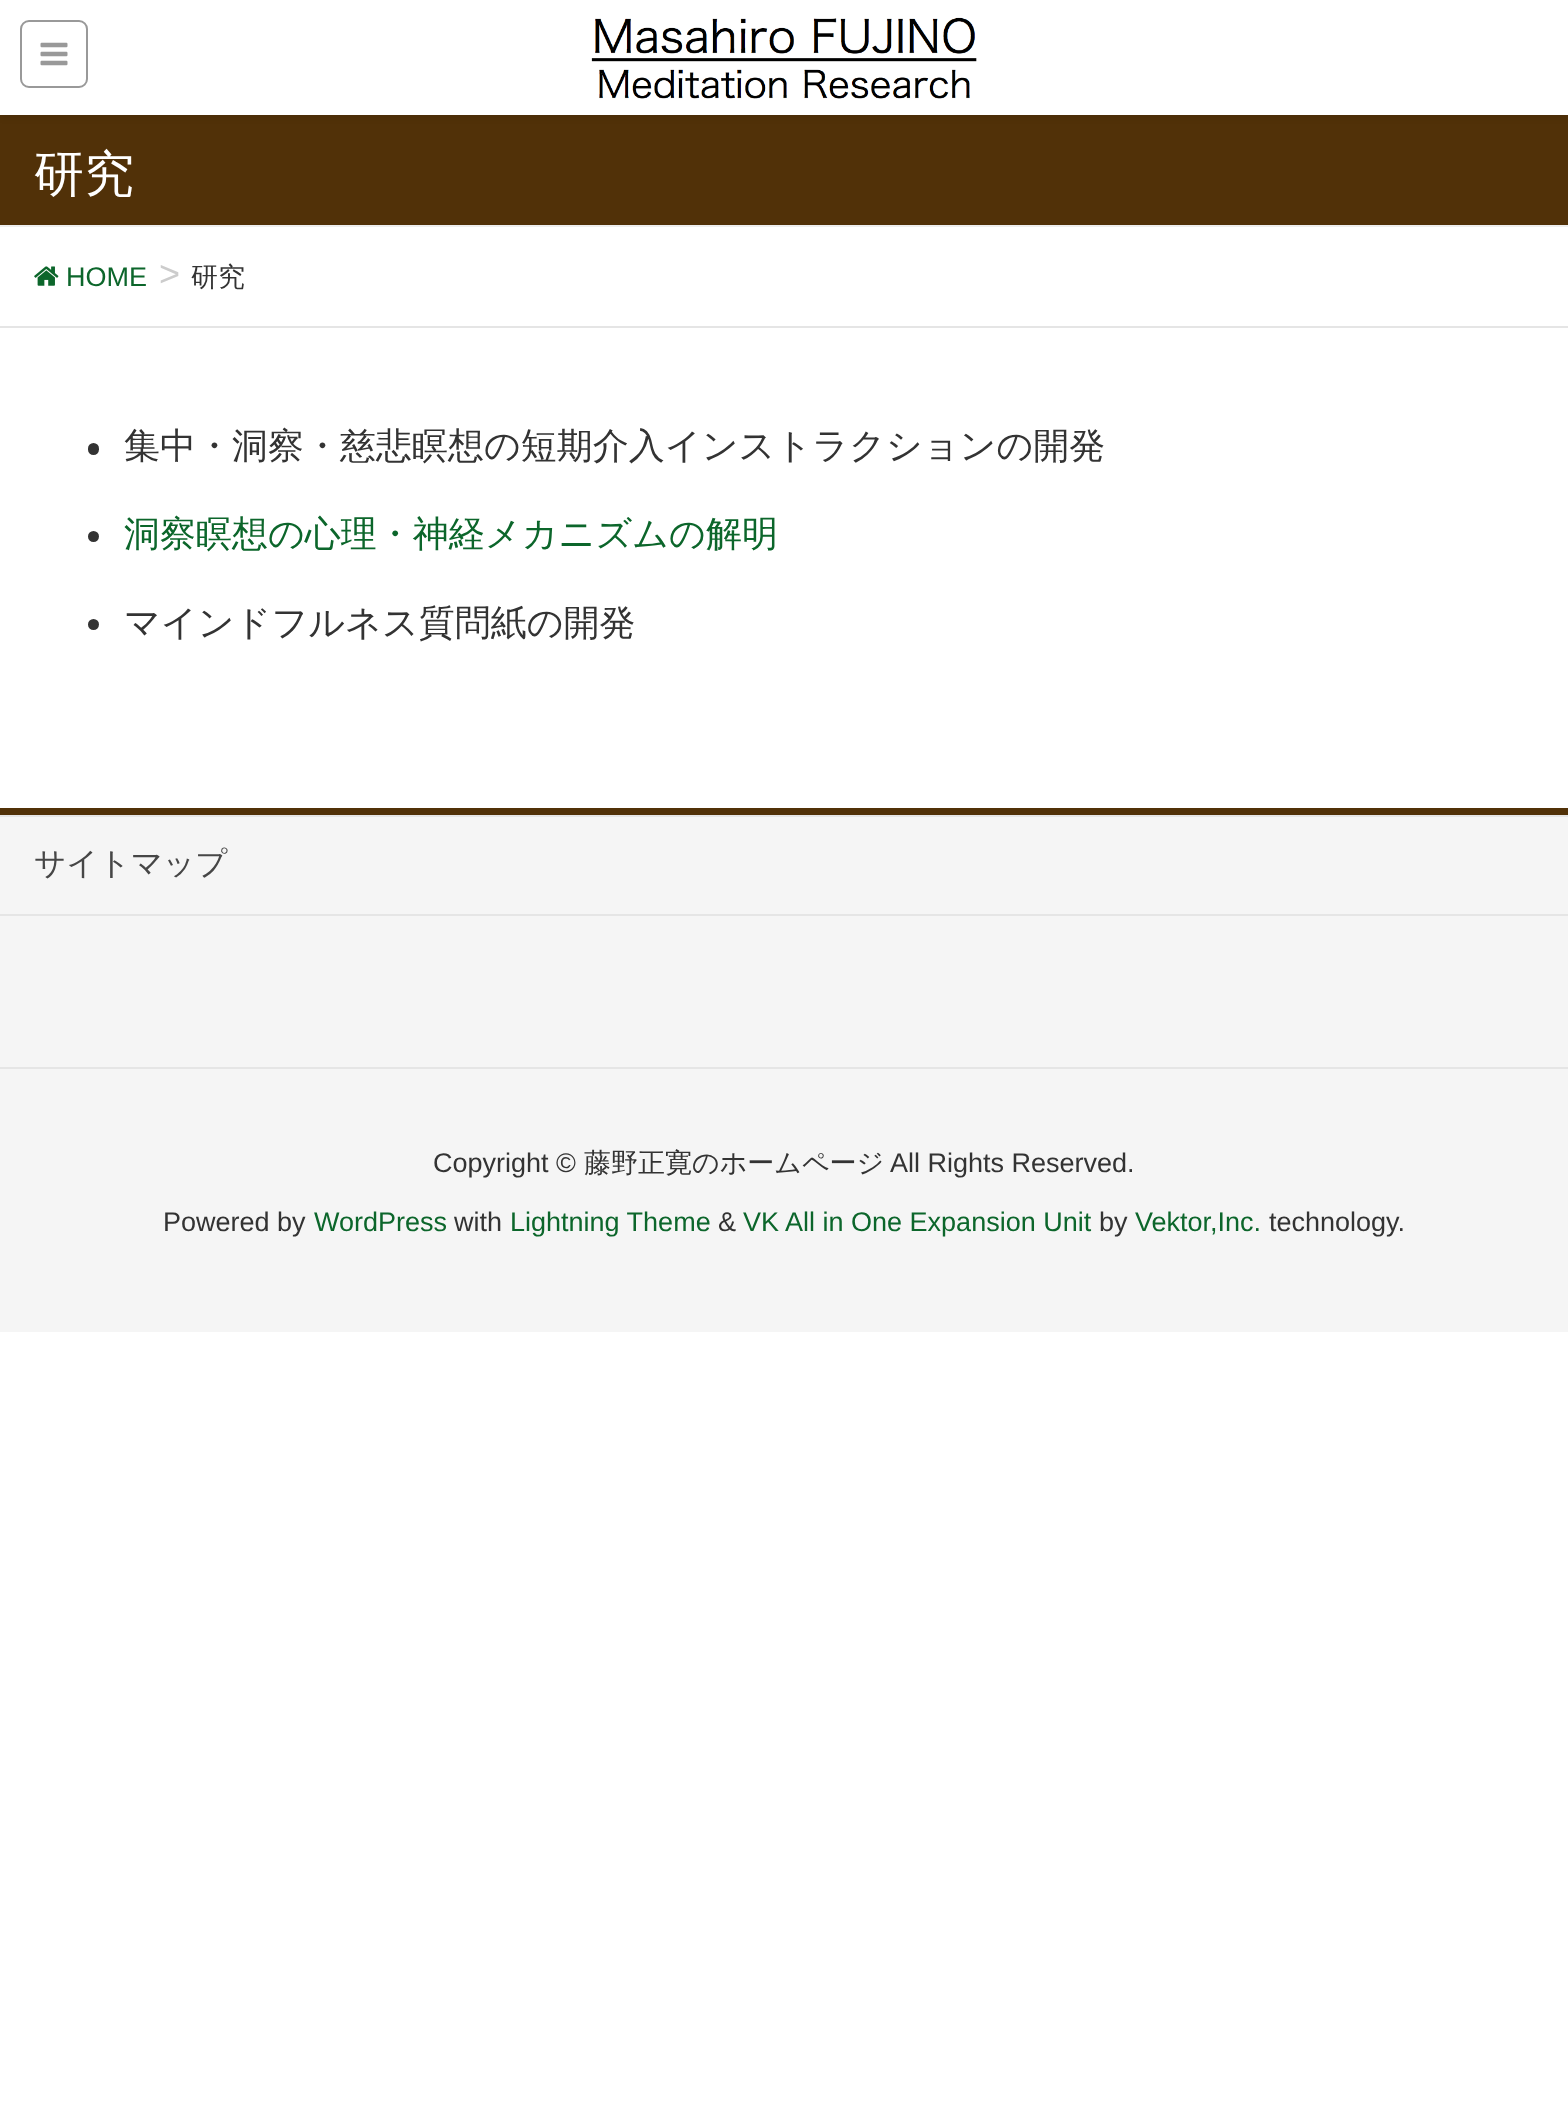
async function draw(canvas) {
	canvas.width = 1568;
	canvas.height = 2117;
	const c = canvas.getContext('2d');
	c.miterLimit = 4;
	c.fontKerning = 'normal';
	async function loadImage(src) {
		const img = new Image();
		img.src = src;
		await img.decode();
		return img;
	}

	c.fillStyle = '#fff';
	c.fillRect(0, 0, 1568, 2117);
	c.fillStyle = '#513108';
	c.fillRect(0, 115, 1568, 110);
	c.fillStyle = '#0000001a';
	c.filter = 'blur(3.5px)';
	c.beginPath();
	c.rect(0, 2, 1568, 115);
	c.fill();
	c.filter = 'none';
	c.fillStyle = '#fff';
	c.fillRect(0, 0, 1568, 115);
	c.beginPath();
	c.roundRect(21, 21, 66, 66, 8);
	c.strokeStyle = '#999';
	c.lineWidth = 2;
	c.stroke();
	c.drawImage(await loadImage('img1.png'), 40, 42, 28, 24);
	c.drawImage(await loadImage('img2.png'), 591, 17, 386, 82);
	c.fillStyle = '#eee';
	c.fillRect(0, 225, 1568, 2);
	c.font = '500 50px WenQuanYi Zen Hei';
	c.fillStyle = '#fff';
	c.fillText('研究', 34, 191);
	c.fillStyle = '#e5e5e5';
	c.fillRect(0, 326, 1568, 2);
	c.drawImage(await loadImage('img3.png'), 34, 266, 25, 20);
	c.font = '27px Liberation Sans';
	c.fillStyle = '#0c662b';
	c.fillText('HOME', 66, 286);
	c.font = '36px Liberation Sans';
	c.fillStyle = '#ccc';
	c.fillText('>', 159, 286);
	c.font = '500 27px WenQuanYi Zen Hei';
	c.fillStyle = '#333';
	c.fillText('研究', 191, 286);
	c.beginPath();
	c.roundRect(88, 443, 11, 12, 5.5);
	c.fill();
	c.font = '500 36px WenQuanYi Zen Hei';
	c.fillText('集中・洞察・慈悲瞑想の短期介入インストラクションの開発', 124, 458);
	c.beginPath();
	c.arc(93.5, 536.5, 5.5, 0, 2 * Math.PI);
	c.fill();
	c.fillStyle = '#0c662b';
	c.fillText('洞察瞑想の心理・神経メカニズムの解明', 124, 546);
	c.fillStyle = '#333';
	c.beginPath();
	c.arc(93.5, 624.5, 5.5, 0, 2 * Math.PI);
	c.fill();
	c.fillText('マインドフルネス質問紙の開発', 124, 635);
	for (const [x, y, w, h, color] of [
		[0, 817, 1568, 515, '#f5f5f5'],
		[0, 808, 1568, 7, '#513108'],
		[0, 815, 1568, 2, '#e5e5e5'],
		[0, 914, 1568, 2, '#e5e5e5'],
	]) {
		c.fillStyle = color;
		c.fillRect(x, y, w, h);
	}
	c.font = '500 31.5px WenQuanYi Zen Hei';
	c.fillStyle = '#464646';
	c.fillText('サイトマップ', 34, 874);
	c.fillStyle = '#e5e5e5';
	c.fillRect(0, 1067, 1568, 2);
	c.font = '27px Liberation Sans';
	c.fillStyle = '#333';
	c.fillText('Copyright ©', 433, 1172);
	c.font = '500 27px WenQuanYi Zen Hei';
	c.fillText('藤野正寛のホームページ', 584, 1172);
	c.font = '27px Liberation Sans';
	c.fillText('All Rights Reserved.', 890, 1172);
	c.fillText('Powered by', 163, 1231);
	c.fillStyle = '#0c662b';
	c.fillText('WordPress', 314, 1231);
	c.fillStyle = '#333';
	c.fillText('with', 454, 1231);
	c.fillStyle = '#0c662b';
	c.fillText('Lightning Theme', 510, 1231);
	c.fillStyle = '#333';
	c.fillText('&', 718, 1231);
	c.fillStyle = '#0c662b';
	c.fillText('VK All in One Expansion Unit', 743, 1231);
	c.fillStyle = '#333';
	c.fillText('by', 1099, 1231);
	c.fillStyle = '#0c662b';
	c.fillText('Vektor,Inc.', 1135, 1231);
	c.fillStyle = '#333';
	c.fillText('technology.', 1269, 1231);
}

draw(document.querySelector('canvas'));
